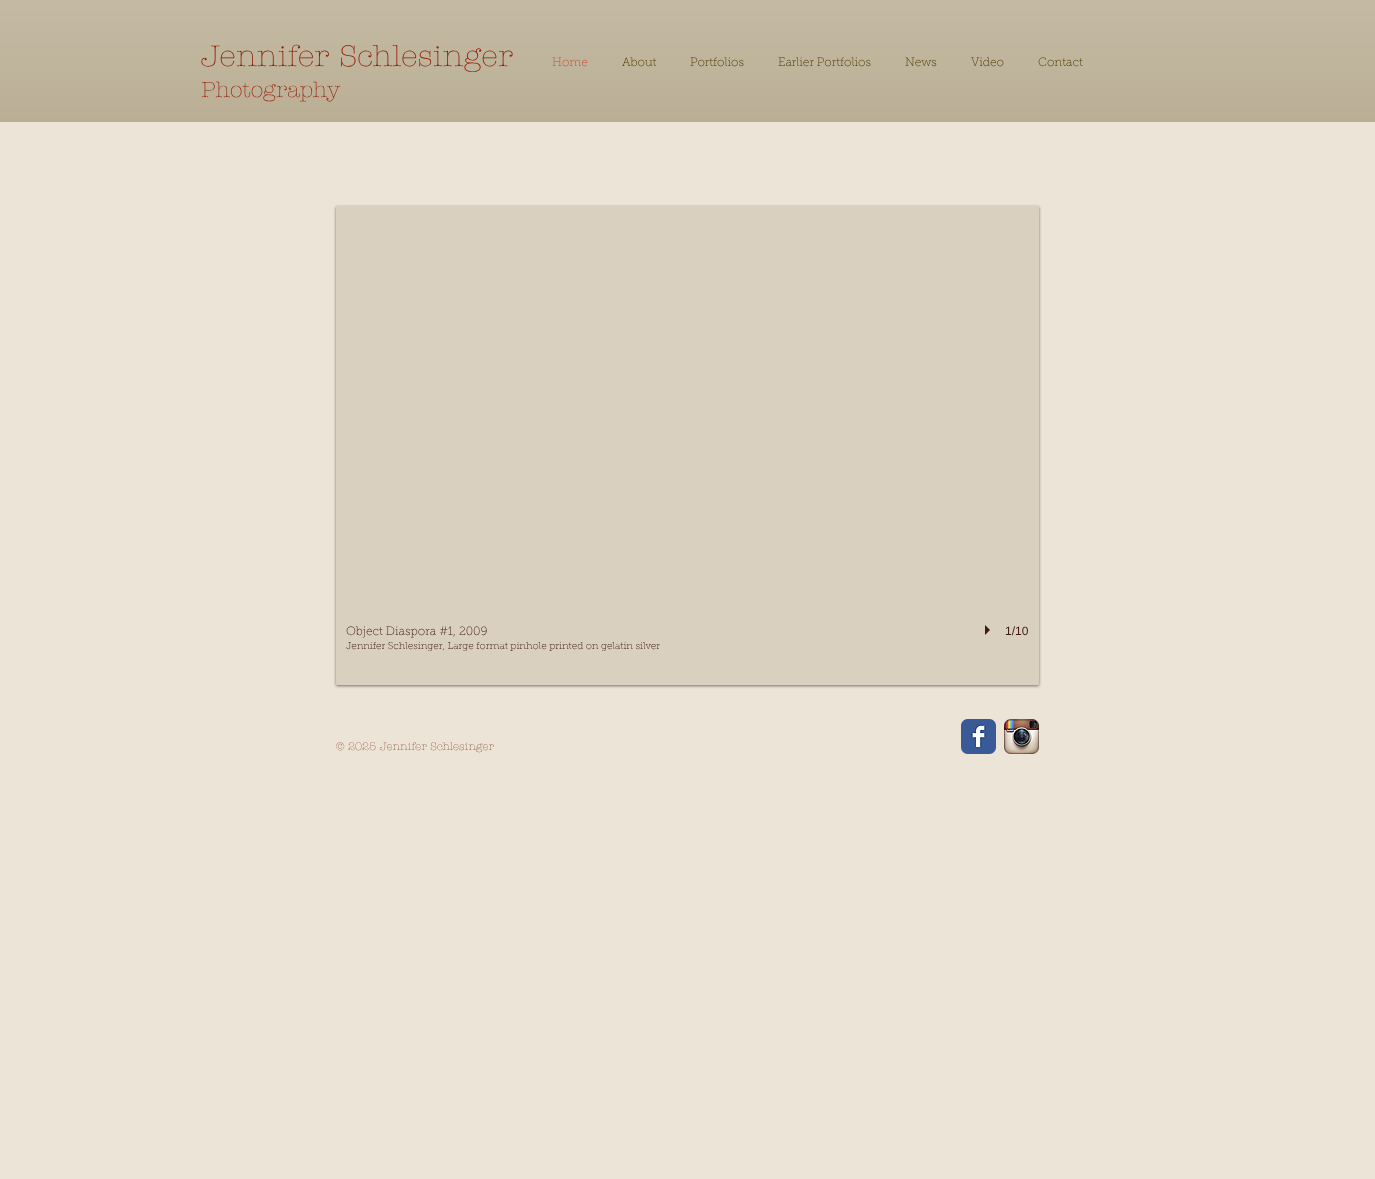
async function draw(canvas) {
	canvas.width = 1375;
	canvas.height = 1179;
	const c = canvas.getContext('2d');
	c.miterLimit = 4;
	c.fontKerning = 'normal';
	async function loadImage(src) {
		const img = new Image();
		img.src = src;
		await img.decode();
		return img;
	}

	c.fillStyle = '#ece4d6';
	c.fillRect(0, 0, 1375, 1179);
	c.fillStyle = '#b0a385';
	c.fillRect(0, 0, 1375, 122);
	c.drawImage(await loadImage('img1.png'), 0, 0, 1375, 122);
	c.font = '300 30px "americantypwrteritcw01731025"';
	c.fillStyle = '#941800';
	c.fillText('Jennifer Schlesinger', 201, 66);
	c.font = '300 22px "americantypwrteritcw01731025"';
	c.fillText('Photography', 201, 97);
	c.font = '100 12px "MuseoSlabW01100"';
	c.fillStyle = '#c45033';
	c.fillText('Home', 552, 66);
	c.fillStyle = '#4f3900';
	for (const [text, x, y] of [
		['About', 622, 66],
		['Portfolios', 690, 66],
		['Earlier Portfolios', 778, 66],
		['News', 905, 66],
		['Video', 971, 66],
		['Contact', 1038, 66],
	]) {
		c.fillText(text, x, y);
	}
	c.save();
	c.beginPath();
	c.moveTo(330, 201);
	c.lineTo(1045, 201);
	c.lineTo(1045, 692);
	c.lineTo(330, 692);
	c.closePath();
	c.moveTo(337, 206);
	c.lineTo(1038, 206);
	c.bezierCurveTo(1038.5, 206, 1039, 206.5, 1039, 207);
	c.lineTo(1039, 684);
	c.bezierCurveTo(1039, 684.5, 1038.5, 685, 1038, 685);
	c.lineTo(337, 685);
	c.bezierCurveTo(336.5, 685, 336, 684.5, 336, 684);
	c.lineTo(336, 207);
	c.bezierCurveTo(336, 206.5, 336.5, 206, 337, 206);
	c.closePath();
	c.clip('evenodd');
	c.fillStyle = '#00000080';
	c.filter = 'blur(1.5px)';
	c.beginPath();
	c.roundRect(336, 207, 703, 479, 1);
	c.fill();
	c.filter = 'none';
	c.restore();
	c.fillStyle = '#422d111c';
	c.fillRect(336, 206, 703, 479);
	c.fillStyle = '#411a11';
	c.fillText('Object Diaspora #1, 2009', 346, 635);
	c.font = '100 10px "MuseoSlabW01100"';
	c.fillText('Jennifer Schlesinger, Large format pinhole printed on gelatin silver', 346, 649);
	c.beginPath();
	c.moveTo(985, 635);
	c.lineTo(985, 625);
	c.lineTo(990, 630);
	c.closePath();
	c.fill();
	c.font = '12px Liberation Sans';
	c.fillText('1/10', 1005, 635);
	c.font = '300 11px "americantypwrteritcw01731025"';
	c.fillStyle = '#823522';
	c.fillText('© 2025 Jennifer Schlesinger', 336, 750);
	c.drawImage(await loadImage('img2.png'), 961, 719, 35, 35);
	c.drawImage(await loadImage('img3.png'), 1004, 719, 35, 35);
}

draw(document.querySelector('canvas'));
